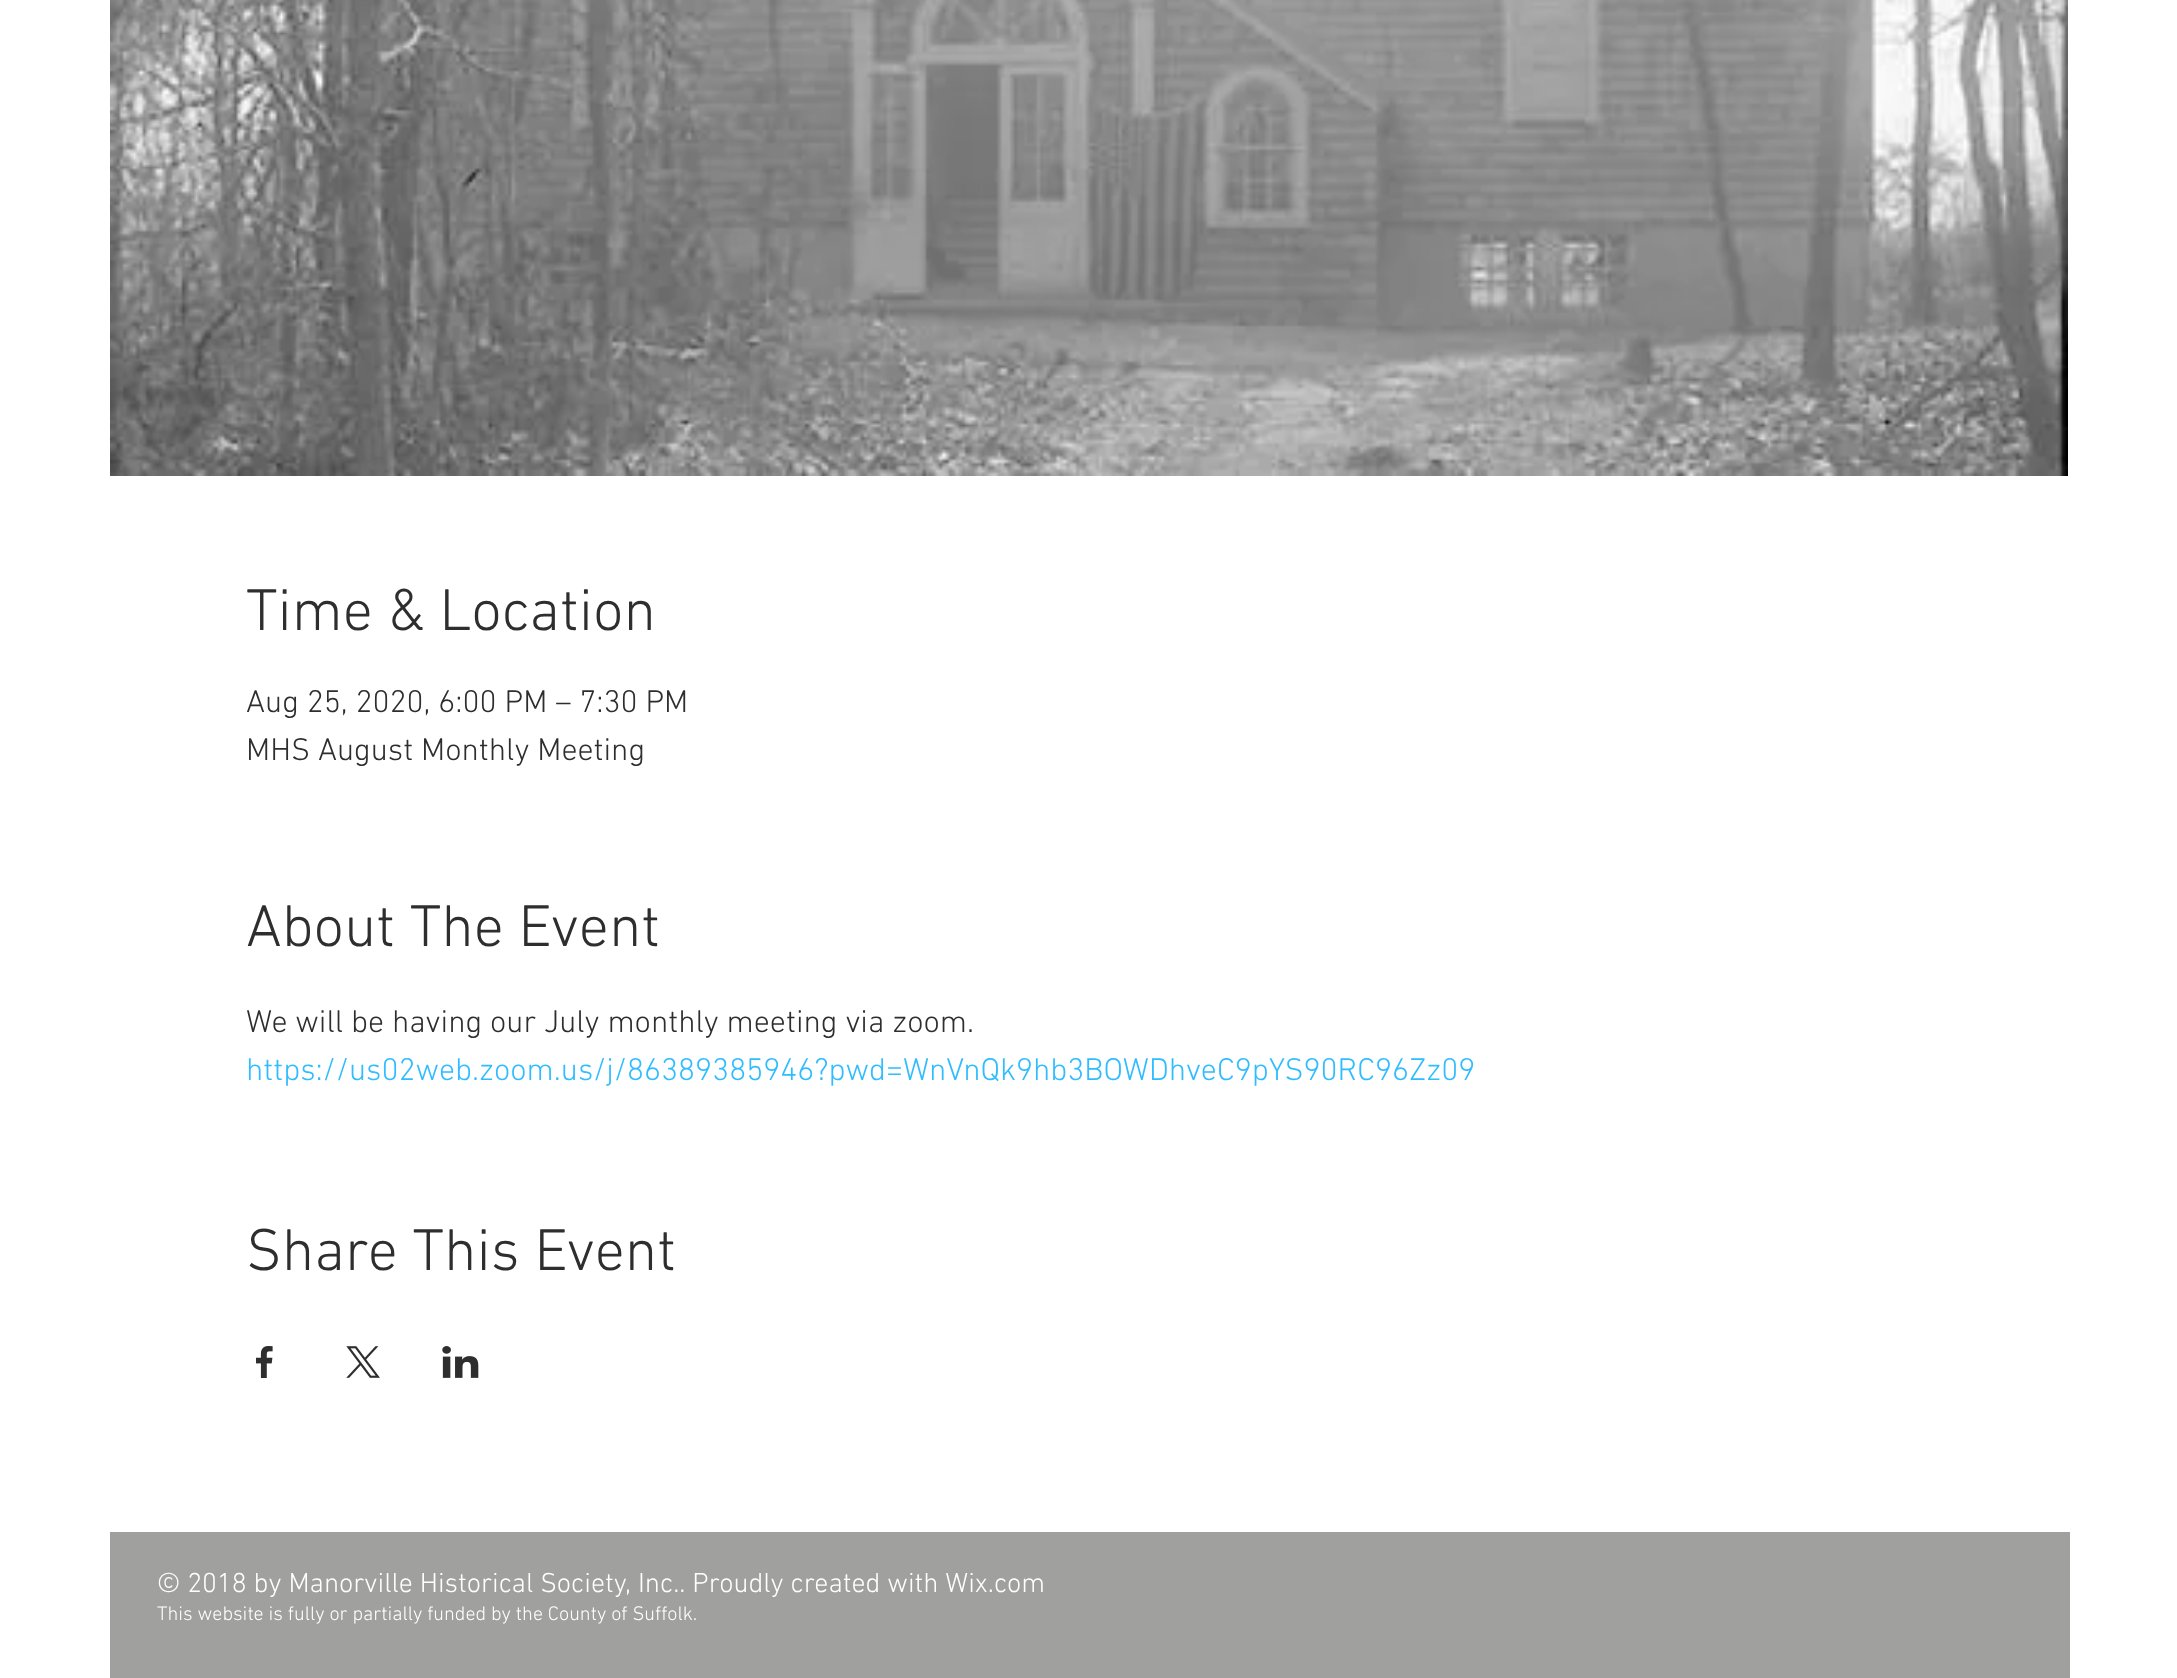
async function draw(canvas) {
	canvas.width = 2177;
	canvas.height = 1678;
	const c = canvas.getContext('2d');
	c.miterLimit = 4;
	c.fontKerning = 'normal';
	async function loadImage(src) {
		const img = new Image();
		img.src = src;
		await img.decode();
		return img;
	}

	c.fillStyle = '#fff';
	c.fillRect(0, 0, 2177, 1678);
	c.drawImage(await loadImage('img1.png'), 110, 0, 1958, 476);
	c.font = '300 60px "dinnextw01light"';
	c.fillStyle = '#2f2e2e';
	c.fillText('Time & Location', 246, 630);
	c.font = '300 32px "dinnextw01light"';
	c.fillText('Aug 25, 2020, 6:00 PM – 7:30 PM', 246, 712);
	c.fillText('MHS August Monthly Meeting', 246, 760);
	c.font = '300 60px "dinnextw01light"';
	c.fillText('About The Event', 246, 946);
	c.font = '300 32px "dinnextw01light"';
	c.fillText('We will be having our July monthly meeting via zoom.', 246, 1032);
	c.fillStyle = '#30bdff';
	c.fillText('https://us02web.zoom.us/j/86389385946?pwd=WnVnQk9hb3BOWDhveC9pYS90RC96Zz09', 246, 1080);
	c.font = '300 60px "dinnextw01light"';
	c.fillStyle = '#2f2e2e';
	c.fillText('Share This Event', 246, 1270);
	c.drawImage(await loadImage('img2.png'), 256, 1346, 17, 32);
	c.drawImage(await loadImage('img3.png'), 346, 1346, 34, 32);
	c.drawImage(await loadImage('img4.png'), 442, 1346, 37, 32);
	c.fillStyle = '#a0a09f';
	c.fillRect(110, 1532, 1960, 146);
	c.font = '300 28px "dinnextw01light"';
	c.fillStyle = '#fff';
	c.fillText('© 2018 by Manorville Historical Society, Inc.. Proudly created with Wix.com', 157, 1592);
	c.font = '300 20px "dinnextw01light"';
	c.fillText('This website is fully or partially funded by the County of Suffolk.', 157, 1620);
}

draw(document.querySelector('canvas'));
